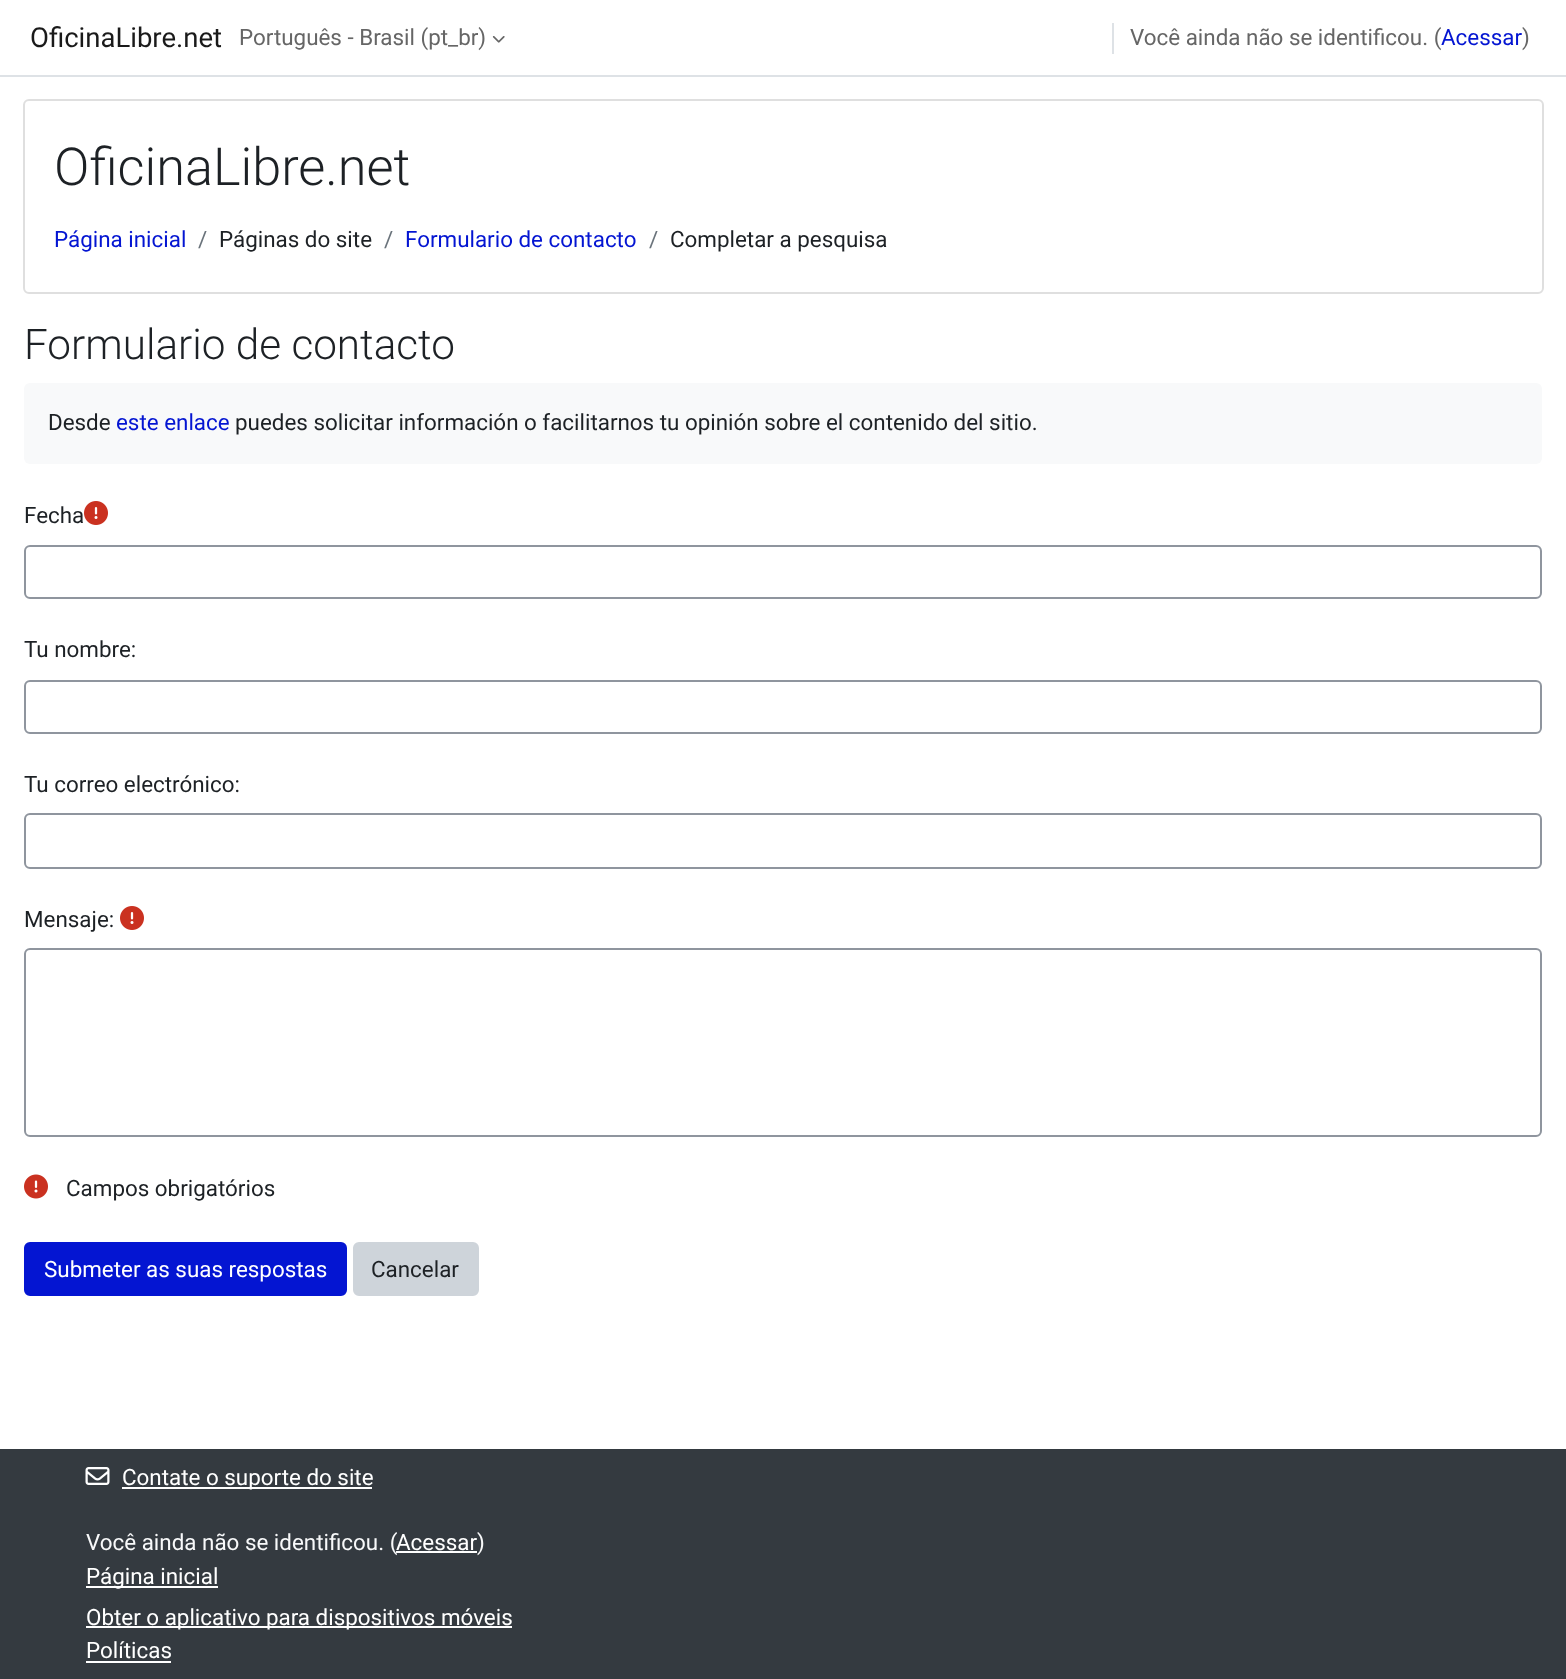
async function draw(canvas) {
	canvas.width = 1566;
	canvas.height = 1679;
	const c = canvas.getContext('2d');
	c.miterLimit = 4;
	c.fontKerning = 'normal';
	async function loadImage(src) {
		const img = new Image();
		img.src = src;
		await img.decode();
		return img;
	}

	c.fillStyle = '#fff';
	c.fillRect(0, 0, 1566, 1679);
	c.fillStyle = '#dee2e6';
	c.fillRect(0, 75, 1566, 2);
	c.font = '27.5px Roboto';
	c.fillStyle = '#1a1a1a';
	c.fillText('OficinaLibre.net', 30, 47);
	c.font = '22.4px Roboto';
	c.fillStyle = '#666';
	c.fillText('Português - Brasil (pt_br)', 239, 45);
	c.drawImage(await loadImage('img1.png'), 492, 36, 13, 7);
	c.fillStyle = '#dee2e6';
	c.fillRect(1112, 23, 2, 31);
	c.fillStyle = '#666';
	c.fillText('Você ainda não se identificou. (', 1130, 45);
	c.fillStyle = '#0415d2';
	c.fillText('Acessar', 1441, 45);
	c.fillStyle = '#666';
	c.fillText(')', 1522, 45);
	c.beginPath();
	c.roundRect(24, 100, 1519, 193, 5);
	c.strokeStyle = '#dfdfdf';
	c.lineWidth = 2;
	c.stroke();
	c.font = '300 52.25px Roboto';
	c.fillStyle = '#1d2125';
	c.fillText('OficinaLibre.net', 54, 185);
	c.font = '22.4px Roboto';
	c.fillStyle = '#0415d2';
	c.fillText('Página inicial', 54, 247);
	c.fillStyle = '#6a737b';
	c.fillText('/', 198, 247);
	c.fillStyle = '#1d2125';
	c.fillText('Páginas do site', 219, 247);
	c.fillStyle = '#6a737b';
	c.fillText('/', 384, 247);
	c.fillStyle = '#0415d2';
	c.fillText('Formulario de contacto', 405, 247);
	c.fillStyle = '#6a737b';
	c.fillText('/', 649, 247);
	c.fillStyle = '#1d2125';
	c.fillText('Completar a pesquisa', 670, 247);
	c.font = '300 42.25px Roboto';
	c.fillText('Formulario de contacto', 24, 359);
	c.fillStyle = '#f8f9fa';
	c.beginPath();
	c.roundRect(24, 383, 1518, 81, 6);
	c.fill();
	c.font = '22.4px Roboto';
	c.fillStyle = '#1d2125';
	c.fillText('Desde', 48, 430);
	c.fillStyle = '#0415d2';
	c.fillText('este enlace', 116, 430);
	c.fillStyle = '#1d2125';
	c.fillText('puedes solicitar información o facilitarnos tu opinión sobre el contenido del sitio.', 235, 430);
	c.fillText('Fecha', 24, 523);
	c.drawImage(await loadImage('img2.png'), 84, 501, 24, 24);
	c.beginPath();
	c.roundRect(25, 546, 1516, 52, 5);
	c.strokeStyle = '#8f959e';
	c.stroke();
	c.fillText('Tu nombre:', 24, 657);
	c.beginPath();
	c.roundRect(25, 681, 1516, 52, 5);
	c.stroke();
	c.fillText('Tu correo electrónico:', 24, 792);
	c.beginPath();
	c.roundRect(25, 814, 1516, 54, 5);
	c.stroke();
	c.fillText('Mensaje:', 24, 927);
	c.drawImage(await loadImage('img2.png'), 120, 906, 24, 24);
	c.beginPath();
	c.roundRect(25, 949, 1516, 187, 5);
	c.stroke();
	c.drawImage(await loadImage('img3.png'), 24, 1174, 24, 25);
	c.fillText('Campos obrigatórios', 66, 1196);
	c.fillStyle = '#0415d2';
	c.beginPath();
	c.roundRect(25, 1243, 321, 52, 5);
	c.fill();
	c.strokeStyle = '#0415d2';
	c.stroke();
	c.fillStyle = '#fff';
	c.fillText('Submeter as suas respostas', 44, 1277);
	c.fillStyle = '#ced4da';
	c.beginPath();
	c.roundRect(354, 1243, 124, 52, 5);
	c.fill();
	c.strokeStyle = '#ced4da';
	c.stroke();
	c.fillStyle = '#1d2125';
	c.fillText('Cancelar', 371, 1277);
	c.fillStyle = '#343a40';
	c.fillRect(0, 1449, 1566, 230);
	c.drawImage(await loadImage('img4.png'), 85, 1467, 25, 18);
	c.fillStyle = '#fff';
	c.fillRect(122, 1487, 250, 2);
	c.fillText('Contate o suporte do site', 122, 1485);
	c.fillStyle = '#f8f9fa';
	c.fillText('Você ainda não se identificou. (', 86, 1550);
	c.fillStyle = '#fff';
	c.fillText('Acessar', 396, 1550);
	c.fillRect(396, 1551, 81, 2);
	c.fillStyle = '#f8f9fa';
	c.fillText(')', 477, 1550);
	c.fillStyle = '#fff';
	c.fillRect(86, 1586, 132, 2);
	c.fillText('Página inicial', 86, 1584);
	c.fillRect(86, 1626, 426, 2);
	c.fillText('Obter o aplicativo para dispositivos móveis', 86, 1625);
	c.fillText('Políticas', 86, 1658);
	c.fillRect(86, 1661, 85, 2);
}

draw(document.querySelector('canvas'));
